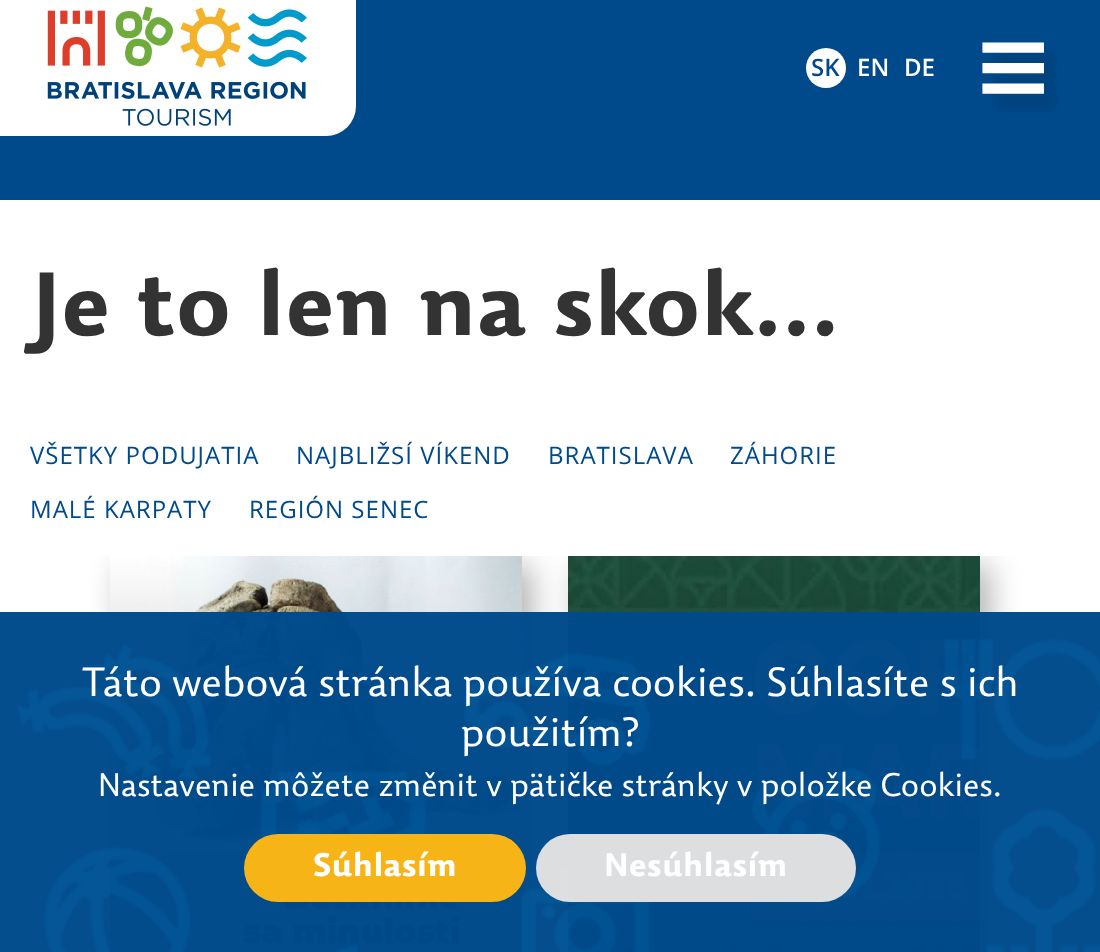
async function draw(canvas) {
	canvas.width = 1100;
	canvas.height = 952;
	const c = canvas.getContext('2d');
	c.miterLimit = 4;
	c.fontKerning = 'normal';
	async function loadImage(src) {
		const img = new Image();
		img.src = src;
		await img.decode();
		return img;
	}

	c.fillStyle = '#fff';
	c.fillRect(0, 0, 1100, 952);
	c.fillStyle = '#004a8c';
	c.fillRect(0, 0, 1100, 200);
	c.fillStyle = '#fff';
	c.beginPath();
	c.roundRect(0, 0, 356, 136, [0, 0, 30, 0]);
	c.fill();
	c.drawImage(await loadImage('img1.png'), 47, 6, 260, 120);
	c.beginPath();
	c.arc(826, 68, 20, 0, 2 * Math.PI);
	c.fill();
	c.font = '600 24px Open Sans';
	c.fillStyle = '#004a8c';
	c.fillText('SK', 811, 76);
	c.fillStyle = '#fff';
	c.fillText('EN', 857, 76);
	c.fillText('DE', 904, 76);
	c.drawImage(await loadImage('img2.png'), 982, 42, 78, 71);
	c.font = 'bold 88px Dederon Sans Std';
	c.fillStyle = '#333';
	c.fillText('Je to len na skok...', 30, 335);
	c.letterSpacing = '1px';
	c.font = '24px Open Sans';
	c.fillStyle = '#004a8c';
	for (const [text, x, y] of [
		['VŠETKY PODUJATIA', 30, 464],
		['NAJBLIŽSÍ VÍKEND', 296, 464],
		['BRATISLAVA', 548, 464],
		['ZÁHORIE', 730, 464],
		['MALÉ KARPATY', 30, 518],
		['REGIÓN SENEC', 249, 518],
	]) {
		c.fillText(text, x, y);
	}
	c.save();
	c.beginPath();
	c.rect(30, 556, 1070, 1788);
	c.clip();
	c.fillStyle = '#0000004d';
	c.filter = 'blur(15px)';
	c.beginPath();
	c.rect(120, 566, 412, 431);
	c.fill();
	c.filter = 'none';
	c.restore();
	c.drawImage(await loadImage('img3.png'), 110, 556, 412, 396);
	c.save();
	c.beginPath();
	c.rect(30, 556, 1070, 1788);
	c.clip();
	c.fillStyle = '#0000004d';
	c.filter = 'blur(15px)';
	c.beginPath();
	c.rect(578, 566, 412, 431);
	c.fill();
	c.filter = 'none';
	c.restore();
	c.drawImage(await loadImage('img4.png'), 568, 556, 412, 396);
	c.fillStyle = '#004a8cfa';
	c.fillRect(0, 612, 1100, 340);
	c.drawImage(await loadImage('img5.png'), 18, 639, 1082, 313);
	c.letterSpacing = '0px';
	c.font = '300 40px Dederon Sans Std';
	c.fillStyle = '#fff';
	c.fillText('Táto webová stránka používa cookies. Súhlasíte s ich', 82, 696);
	c.fillText('použitím?', 461, 746);
	c.font = '300 32px Dederon Sans Std';
	c.fillText('Nastavenie môžete změnit v pätičke stránky v položke Cookies.', 98, 796);
	c.fillStyle = '#fcb713fa';
	c.beginPath();
	c.roundRect(244, 834, 282, 68, 34);
	c.fill();
	c.font = 'bold 32px Dederon Sans Std';
	c.fillStyle = '#fff';
	c.fillText('Súhlasím', 313, 876);
	c.fillStyle = '#e1e1e1fa';
	c.beginPath();
	c.roundRect(536, 834, 320, 68, 34);
	c.fill();
	c.fillStyle = '#fff';
	c.fillText('Nesúhlasím', 604, 876);
}

draw(document.querySelector('canvas'));
